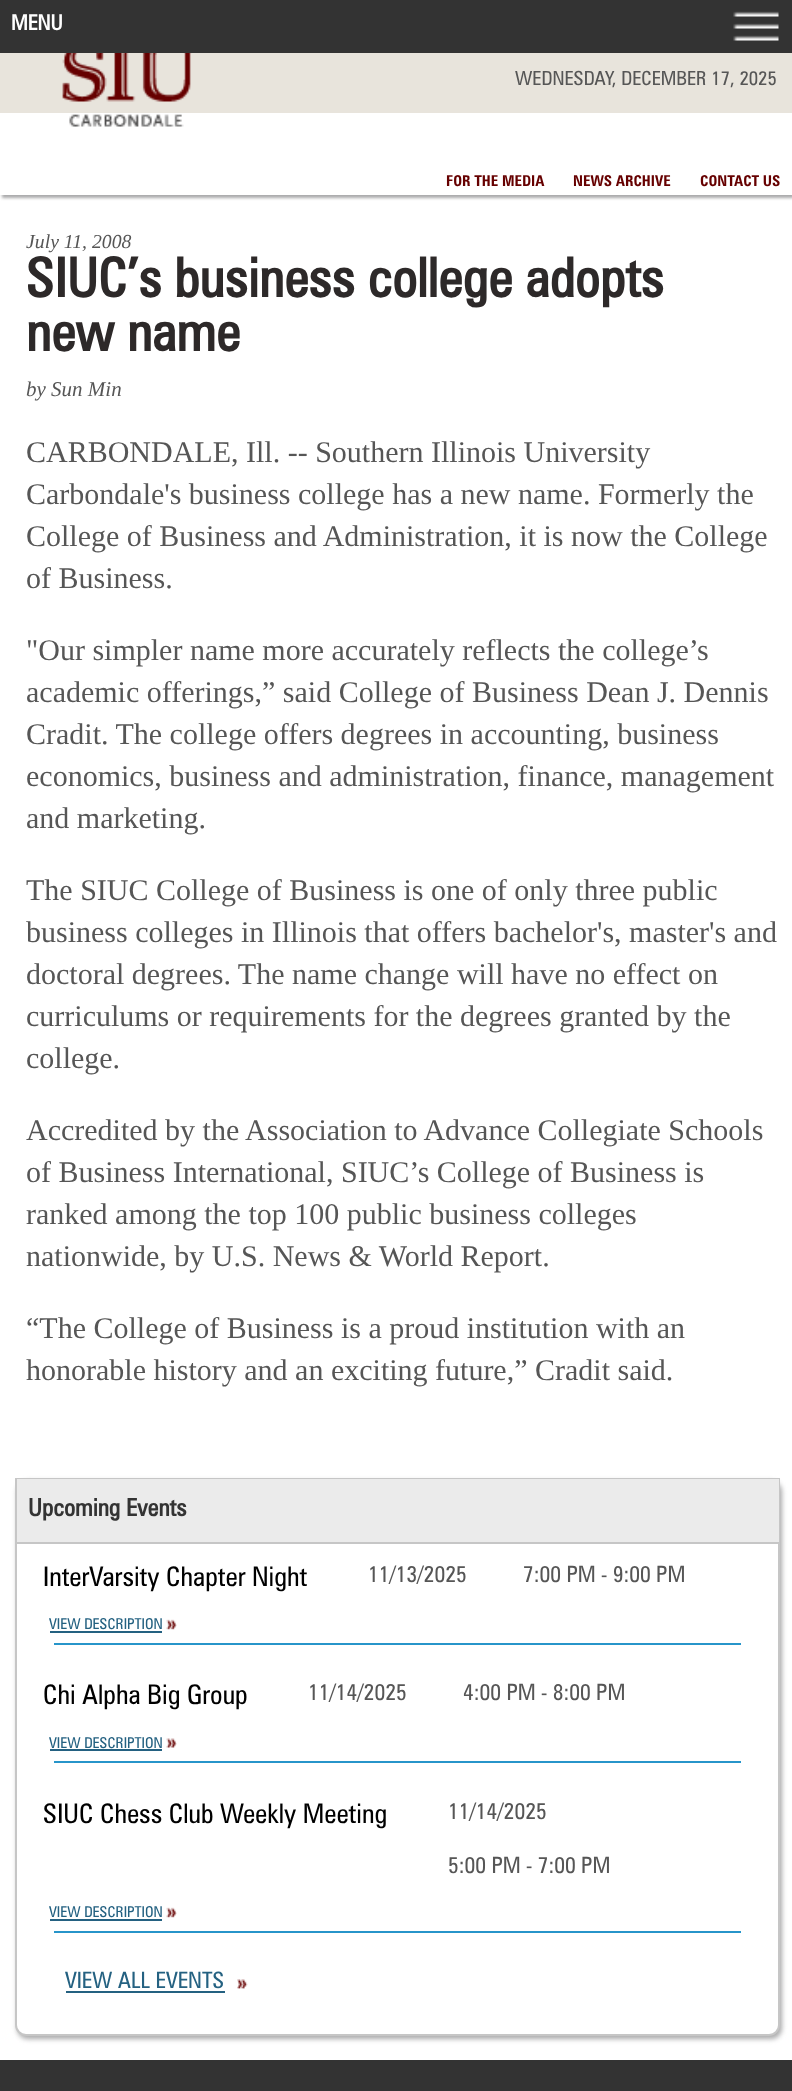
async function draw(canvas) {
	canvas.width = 792;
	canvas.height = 2091;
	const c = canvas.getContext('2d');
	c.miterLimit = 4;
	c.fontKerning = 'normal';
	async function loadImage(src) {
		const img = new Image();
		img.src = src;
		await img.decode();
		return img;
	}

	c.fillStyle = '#fff';
	c.fillRect(0, 0, 792, 2091);
	c.fillStyle = '#333';
	c.fillRect(0, 0, 792, 53);
	c.font = 'bold 21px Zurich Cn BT';
	c.fillStyle = '#fff';
	c.fillText('MENU', 11, 30);
	c.drawImage(await loadImage('img1.png'), 733, 11, 46, 30);
	c.fillStyle = '#e8e4dc';
	c.fillRect(0, 53, 792, 60);
	c.drawImage(await loadImage('img2.png'), 62, 53, 130, 74);
	c.font = '19.5px Zurich Cn BT';
	c.fillStyle = '#565656';
	c.fillText('WEDNESDAY, DECEMBER 17, 2025', 515, 85);
	c.save();
	c.beginPath();
	c.rect(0, 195, 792, 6);
	c.clip();
	c.fillStyle = '#aaaaab';
	c.filter = 'blur(1.5px)';
	c.beginPath();
	c.rect(2, 165, 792, 33);
	c.fill();
	c.filter = 'none';
	c.restore();
	c.font = 'bold 15px "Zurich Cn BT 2"';
	c.fillStyle = '#600';
	for (const [text, x, y] of [
		['FOR THE MEDIA', 446, 186],
		['NEWS ARCHIVE', 573, 186],
		['CONTACT US', 700, 186],
	]) {
		c.fillText(text, x, y);
	}
	c.font = 'italic 19.75px Liberation Serif';
	c.fillStyle = '#565656';
	c.fillText('July 11, 2008', 26, 248);
	c.font = 'bold 54px Zurich Cn BT';
	c.fillStyle = '#2d2929';
	c.fillText('SIUC’s business college adopts', 26, 297);
	c.fillText('new name', 26, 351);
	c.font = 'italic 21px Liberation Serif';
	c.fillStyle = '#565656';
	c.fillText('by Sun Min', 26, 396);
	c.font = '30px Liberation Serif';
	for (const [text, x, y] of [
		['CARBONDALE, Ill. -- Southern Illinois University', 26, 462],
		['Carbondale\'s business college has a new name. Formerly the', 26, 504],
		['College of Business and Administration, it is now the College', 26, 546],
		['of Business.', 26, 588],
		['"Our simpler name more accurately reflects the college’s', 26, 660],
		['academic offerings,” said College of Business Dean J. Dennis', 26, 702],
		['Cradit. The college offers degrees in accounting, business', 26, 744],
		['economics, business and administration, finance, management', 26, 786],
		['and marketing.', 26, 828],
		['The SIUC College of Business is one of only three public', 26, 900],
		['business colleges in Illinois that offers bachelor\'s, master\'s and', 26, 942],
		['doctoral degrees. The name change will have no effect on', 26, 984],
		['curriculums or requirements for the degrees granted by the', 26, 1026],
		['college.', 26, 1068],
		['Accredited by the Association to Advance Collegiate Schools', 26, 1140],
		['of Business International, SIUC’s College of Business is', 26, 1182],
		['ranked among the top 100 public business colleges', 26, 1224],
		['nationwide, by U.S. News & World Report.', 26, 1266],
		['“The College of Business is a proud institution with an', 26, 1338],
		['honorable history and an exciting future,” Cradit said.', 26, 1380],
	]) {
		c.fillText(text, x, y);
	}
	c.fillStyle = '#aaaaab';
	c.filter = 'blur(2.5px)';
	c.beginPath();
	c.roundRect(17, 1481, 765, 558, 11);
	c.fill();
	c.filter = 'none';
	c.fillStyle = '#fff';
	c.beginPath();
	c.roundRect(16, 1479, 763, 556, [0, 0, 10, 10]);
	c.fill();
	c.strokeStyle = '#c6c6c6';
	c.lineWidth = 2;
	c.stroke();
	c.fillStyle = '#ebebeb';
	c.fillRect(17, 1479, 762, 63);
	c.fillStyle = '#c6c6c6';
	c.fillRect(17, 1542, 762, 2);
	c.font = 'bold 24px Zurich Cn BT';
	c.fillStyle = '#333';
	c.fillText('Upcoming Events', 28, 1516);
	c.font = '27px Zurich Cn BT';
	c.fillStyle = '#000';
	c.fillText('InterVarsity Chapter Night', 43, 1586);
	c.font = '22.5px Zurich Cn BT';
	c.fillStyle = '#565656';
	c.fillText('11/13/2025', 368, 1582);
	c.fillText('7:00 PM - 9:00 PM', 523, 1582);
	c.font = '15px Zurich Cn BT';
	c.fillStyle = '#246181';
	c.fillText('VIEW DESCRIPTION', 49, 1629);
	c.fillRect(50, 1631, 112, 2);
	c.drawImage(await loadImage('img3.png'), 166, 1619, 11, 11);
	c.fillStyle = '#2795ca';
	c.fillRect(54, 1643, 687, 2);
	c.font = '27px Zurich Cn BT';
	c.fillStyle = '#000';
	c.fillText('Chi Alpha Big Group', 43, 1704);
	c.font = '22.5px Zurich Cn BT';
	c.fillStyle = '#565656';
	c.fillText('11/14/2025', 308, 1700);
	c.fillText('4:00 PM - 8:00 PM', 463, 1700);
	c.font = '15px Zurich Cn BT';
	c.fillStyle = '#246181';
	c.fillText('VIEW DESCRIPTION', 49, 1748);
	c.fillRect(50, 1749, 112, 2);
	c.drawImage(await loadImage('img4.png'), 166, 1738, 11, 10);
	c.fillStyle = '#2795ca';
	c.fillRect(54, 1761, 687, 2);
	c.font = '27px Zurich Cn BT';
	c.fillStyle = '#000';
	c.fillText('SIUC Chess Club Weekly Meeting', 43, 1823);
	c.font = '22.5px Zurich Cn BT';
	c.fillStyle = '#565656';
	c.fillText('11/14/2025', 448, 1819);
	c.fillText('5:00 PM - 7:00 PM', 448, 1873);
	c.font = '15px Zurich Cn BT';
	c.fillStyle = '#246181';
	c.fillText('VIEW DESCRIPTION', 49, 1917);
	c.fillRect(50, 1919, 112, 2);
	c.drawImage(await loadImage('img3.png'), 166, 1907, 11, 11);
	c.fillStyle = '#2795ca';
	c.fillRect(54, 1931, 687, 2);
	c.font = '22.5px Zurich Cn BT';
	c.fillStyle = '#246181';
	c.fillText('VIEW ALL EVENTS', 65, 1988);
	c.fillRect(66, 1991, 159, 2);
	c.drawImage(await loadImage('img5.png'), 237, 1979, 11, 10);
	c.fillStyle = '#333';
	c.fillRect(0, 2060, 792, 31);
}

draw(document.querySelector('canvas'));
